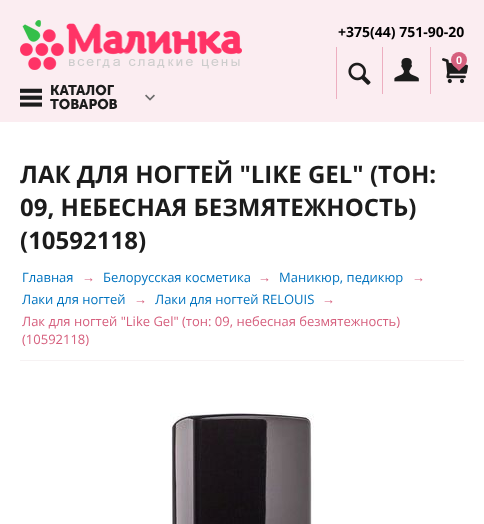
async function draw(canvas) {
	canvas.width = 484;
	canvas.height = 524;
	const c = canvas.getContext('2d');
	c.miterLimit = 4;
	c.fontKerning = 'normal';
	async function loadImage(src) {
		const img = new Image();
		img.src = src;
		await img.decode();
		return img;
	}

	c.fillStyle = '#fff';
	c.fillRect(0, 0, 484, 524);
	c.fillStyle = '#fbedf1';
	c.fillRect(0, 0, 484, 122);
	c.drawImage(await loadImage('img1.png'), 20, 20, 222, 50);
	c.font = 'bold 14px Open Sans';
	c.fillStyle = '#000';
	c.fillText('+375(44) 751-90-20', 338, 37);
	c.fillStyle = '#edaec0';
	c.fillRect(336, 47, 1, 52);
	c.drawImage(await loadImage('img2.png'), 348, 62, 23, 23);
	c.fillRect(430, 47, 1, 47);
	c.fillRect(382, 47, 1, 47);
	c.drawImage(await loadImage('img3.png'), 394, 57, 25, 25);
	c.drawImage(await loadImage('img4.png'), 442, 58, 26, 26);
	c.fillStyle = '#d6607e';
	c.beginPath();
	c.arc(459, 60, 8, 0, 2 * Math.PI);
	c.fill();
	c.font = 'bold 11px Liberation Sans';
	c.fillStyle = '#fff';
	c.fillText('0', 456, 64);
	c.fillStyle = '#d6607e';
	c.beginPath();
	c.moveTo(454, 66);
	c.lineTo(464, 66);
	c.lineTo(459, 71);
	c.closePath();
	c.fill();
	c.drawImage(await loadImage('img5.png'), 20, 88, 22, 19);
	c.font = 'bold 14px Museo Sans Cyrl';
	c.fillStyle = '#1c1c1c';
	c.fillText('КАТАЛОГ', 50, 95);
	c.fillText('ТОВАРОВ', 50, 109);
	c.drawImage(await loadImage('img6.png'), 145, 94, 10, 7);
	c.font = 'bold 24px Open Sans';
	for (const [text, x, y] of [
		['ЛАК ДЛЯ НОГТЕЙ "LIKE GEL" (ТОН:', 20, 183],
		['09, НЕБЕСНАЯ БЕЗМЯТЕЖНОСТЬ)', 20, 216],
		['(10592118)', 20, 249],
	]) {
		c.fillText(text, x, y);
	}
	c.fillStyle = '#f6f2f3';
	c.fillRect(20, 360, 444, 1);
	c.font = '13px Open Sans';
	c.fillStyle = '#0073bf';
	c.fillText('Главная', 22, 282);
	c.font = '13px Liberation Sans';
	c.fillStyle = '#d6607e';
	c.fillText('→', 82, 282);
	c.font = '13px Open Sans';
	c.fillStyle = '#0073bf';
	c.fillText('Белорусская косметика', 103, 282);
	c.font = '13px Liberation Sans';
	c.fillStyle = '#d6607e';
	c.fillText('→', 258, 282);
	c.font = '13px Open Sans';
	c.fillStyle = '#0073bf';
	c.fillText('Маникюр, педикюр', 279, 282);
	c.font = '13px Liberation Sans';
	c.fillStyle = '#d6607e';
	c.fillText('→', 412, 282);
	c.font = '13px Open Sans';
	c.fillStyle = '#0073bf';
	c.fillText('Лаки для ногтей', 22, 304);
	c.font = '13px Liberation Sans';
	c.fillStyle = '#d6607e';
	c.fillText('→', 134, 304);
	c.font = '13px Open Sans';
	c.fillStyle = '#0073bf';
	c.fillText('Лаки для ногтей RELOUIS', 155, 304);
	c.font = '13px Liberation Sans';
	c.fillStyle = '#d6607e';
	c.fillText('→', 322, 304);
	c.font = '13px Open Sans';
	c.fillText('Лак для ногтей "Like Gel" (тон: 09, небесная безмятежность)', 22, 326);
	c.fillText('(10592118)', 22, 344);
	c.drawImage(await loadImage('img7.png'), 170, 412, 144, 112);
}

draw(document.querySelector('canvas'));
